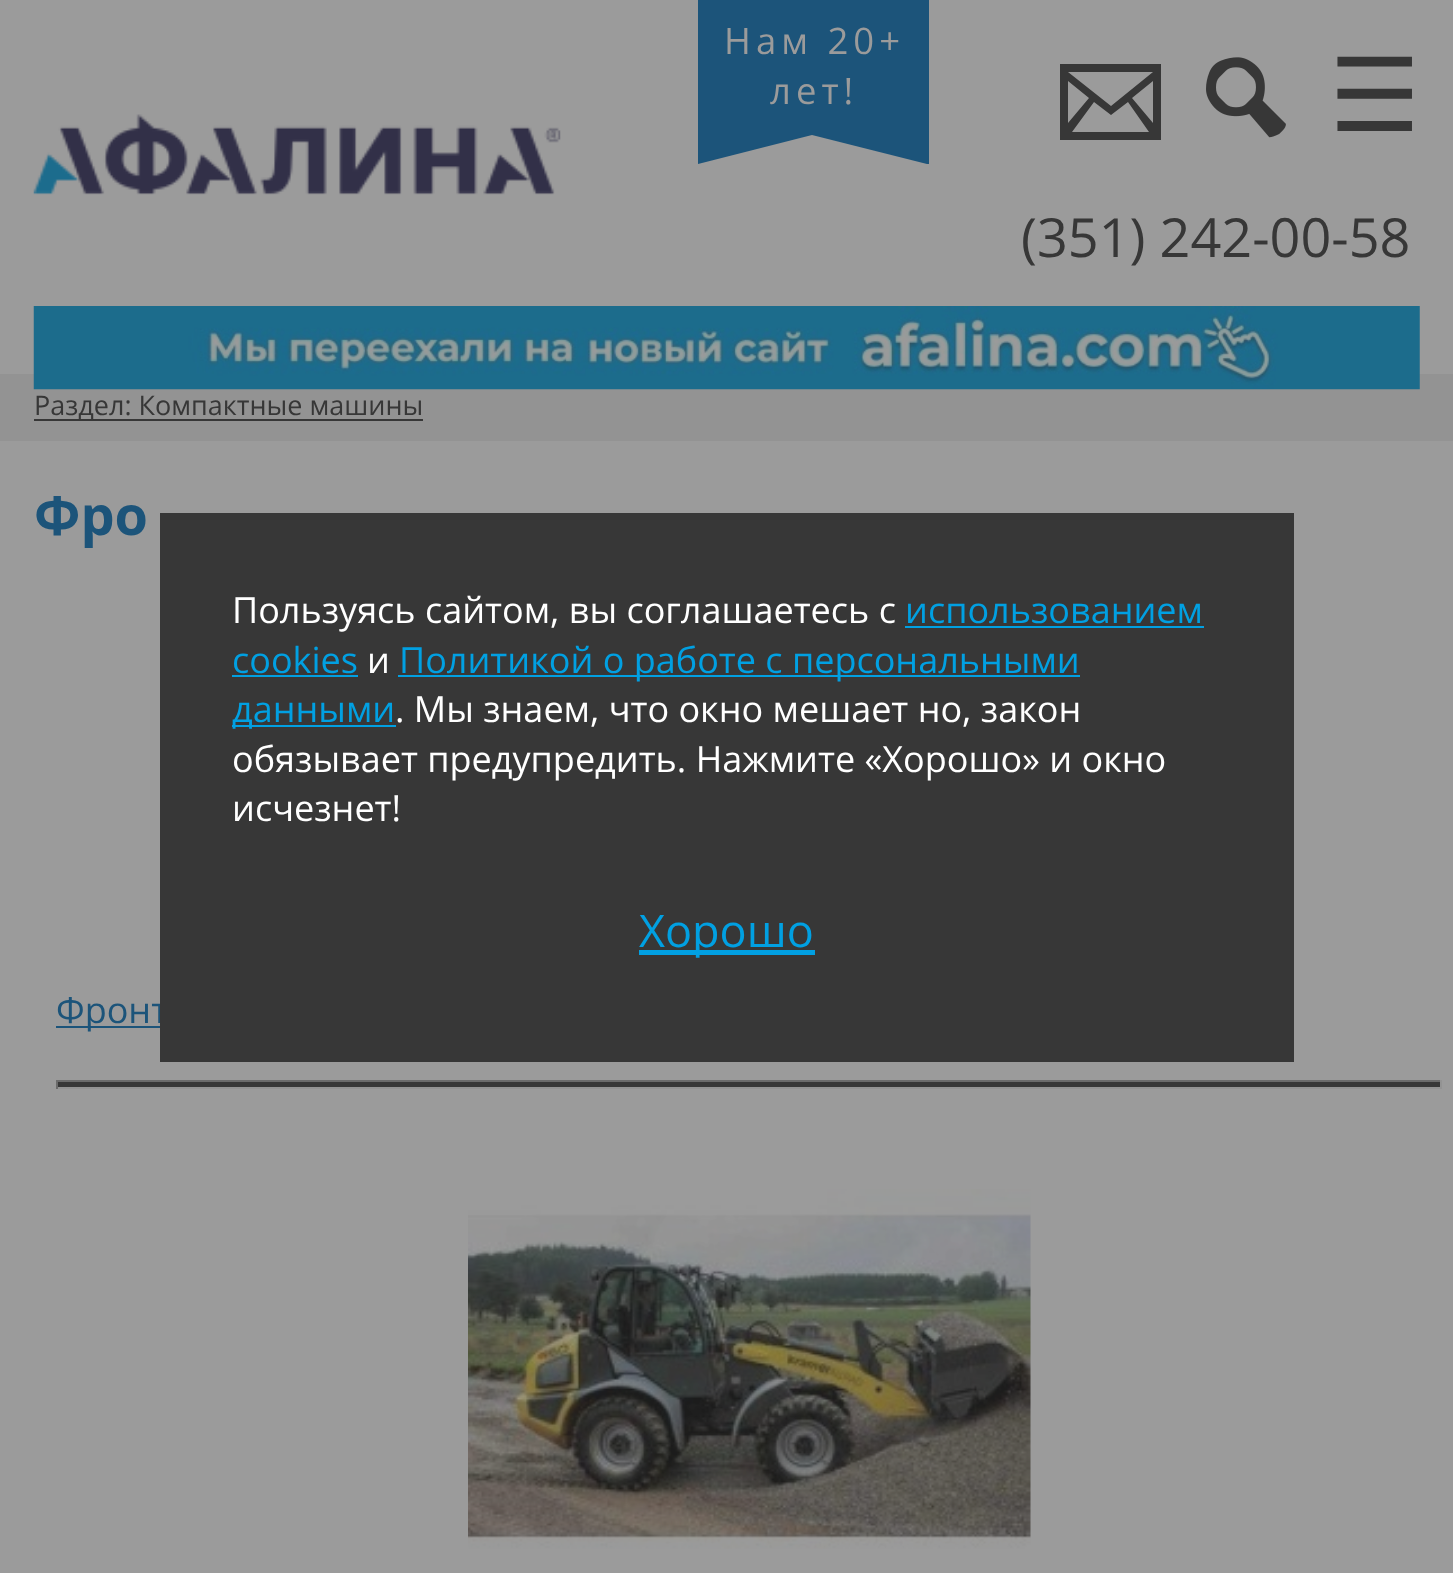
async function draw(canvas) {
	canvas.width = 1453;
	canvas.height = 1573;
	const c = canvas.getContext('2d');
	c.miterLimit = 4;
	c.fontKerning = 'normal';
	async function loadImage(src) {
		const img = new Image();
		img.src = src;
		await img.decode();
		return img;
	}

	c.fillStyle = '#9b9b9b';
	c.fillRect(0, 0, 1453, 1573);
	c.fillStyle = '#1c547a';
	c.fillRect(698, 0, 231, 164);
	c.letterSpacing = '5px';
	c.font = '36.5px Open Sans';
	c.fillStyle = '#9b9b9b';
	c.fillText('Нам 20+', 724, 54);
	c.fillText('лет!', 770, 104);
	c.beginPath();
	c.moveTo(927, 164);
	c.lineTo(698, 164);
	c.lineTo(812, 135);
	c.closePath();
	c.fill();
	c.fillStyle = '#373737';
	c.beginPath();
	c.moveTo(1060, 64);
	c.lineTo(1060, 140);
	c.lineTo(1161, 140);
	c.lineTo(1161, 64);
	c.closePath();
	c.moveTo(1089, 98);
	c.lineTo(1068, 123);
	c.lineTo(1068, 81);
	c.closePath();
	c.moveTo(1068, 72);
	c.lineTo(1153, 72);
	c.lineTo(1111, 106);
	c.closePath();
	c.moveTo(1094, 102);
	c.lineTo(1111, 115);
	c.lineTo(1128, 102);
	c.lineTo(1149, 132);
	c.lineTo(1072, 132);
	c.closePath();
	c.moveTo(1132, 98);
	c.lineTo(1153, 81);
	c.lineTo(1153, 123);
	c.closePath();
	c.fill();
	c.drawImage(await loadImage('img1.png'), 1206, 57, 80, 81);
	c.letterSpacing = '0px';
	c.font = '102px DejaVu Sans';
	c.fillText('☰', 1329, 131);
	c.drawImage(await loadImage('img2.png'), 33, 114, 528, 81);
	c.font = '54px Open Sans';
	c.fillText('(351) 242-00-58', 1021, 257);
	c.fillStyle = '#939393';
	c.fillRect(0, 374, 1453, 67);
	c.drawImage(await loadImage('img3.png'), 33, 306, 1387, 84);
	c.fillStyle = '#373737';
	c.fillRect(34, 419, 389, 2);
	c.font = '27px Open Sans';
	c.fillText('Раздел: Компактные машины', 34, 415);
	c.font = 'bold 54px Open Sans';
	c.fillStyle = '#1c547a';
	c.fillText('Фро', 34, 535);
	c.fillRect(56, 1026, 104, 2);
	c.font = '36px Open Sans';
	c.fillText('Фронт', 56, 1023);
	for (const [x, y, w, h, color] of [
		[58, 1082, 1382, 5, '#373737'],
		[56, 1080, 1386, 2, '#6b6b6b'],
		[1440, 1080, 2, 9, '#939393'],
		[56, 1087, 1386, 2, '#939393'],
		[56, 1080, 2, 9, '#6b6b6b'],
	]) {
		c.fillStyle = color;
		c.fillRect(x, y, w, h);
	}
	c.drawImage(await loadImage('img4.png'), 468, 1189, 563, 360);
	c.fillStyle = '#373737';
	c.fillRect(160, 513, 1134, 549);
	c.fillStyle = '#fff';
	c.fillText('Пользуясь сайтом, вы соглашаетесь с', 232, 623);
	c.fillStyle = '#01a0e2';
	c.fillText('использованием', 905, 623);
	c.fillRect(905, 626, 299, 2);
	c.fillText('cookies', 232, 673);
	c.fillRect(232, 675, 126, 2);
	c.fillStyle = '#fff';
	c.fillText('и', 367, 673);
	c.fillStyle = '#01a0e2';
	c.fillRect(398, 675, 682, 2);
	c.fillText('Политикой о работе с персональными', 399, 673);
	c.fillRect(232, 725, 164, 2);
	c.fillText('данными', 232, 722);
	c.fillStyle = '#fff';
	for (const [text, x, y] of [
		['. Мы знаем, что окно мешает но, закон', 395, 722],
		['обязывает предупредить. Нажмите «Хорошо» и окно', 232, 772],
		['исчезнет!', 232, 821],
	]) {
		c.fillText(text, x, y);
	}
	c.fillStyle = '#01a0e2';
	c.fillRect(639, 950, 176, 5);
	c.font = '45px Open Sans';
	c.fillText('Хорошо', 639, 947);
}

draw(document.querySelector('canvas'));
